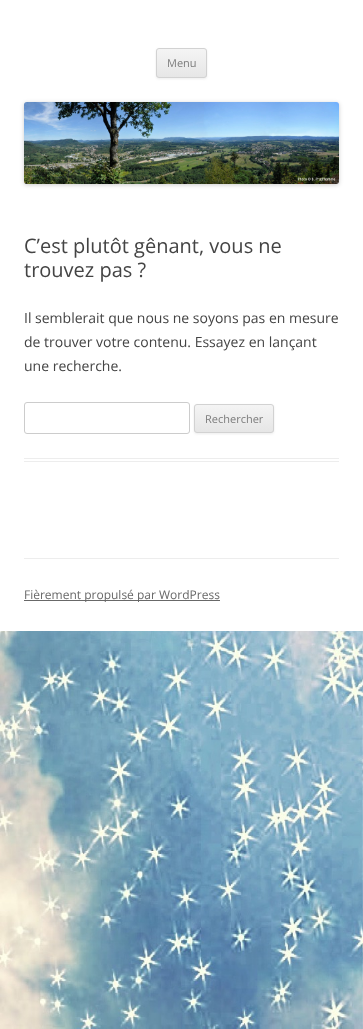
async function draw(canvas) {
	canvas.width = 363;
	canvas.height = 1029;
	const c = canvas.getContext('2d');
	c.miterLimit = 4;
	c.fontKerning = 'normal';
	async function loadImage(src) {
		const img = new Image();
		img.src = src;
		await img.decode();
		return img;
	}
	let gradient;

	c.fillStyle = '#fff';
	c.fillRect(0, 0, 363, 1029);
	c.drawImage(await loadImage('img1.png'), 0, 631, 363, 398);
	c.fillStyle = '#4040401a';
	c.filter = 'blur(1px)';
	c.beginPath();
	c.roundRect(156, 49, 51, 30, 3);
	c.fill();
	c.filter = 'none';
	c.save();
	c.beginPath();
	c.roundRect(156, 48, 51, 30, 3);
	c.clip();
	gradient = c.createLinearGradient(182, 49, 182, 77);
	gradient.addColorStop(0, '#f4f4f4');
	gradient.addColorStop(1, '#e6e6e6');
	c.fillStyle = gradient;
	c.fillRect(156, 49, 51, 28);
	c.restore();
	c.beginPath();
	c.roundRect(156.5, 48.5, 50, 29, 2.5);
	c.strokeStyle = '#d2d2d2';
	c.stroke();
	c.font = '11px Open Sans';
	c.fillStyle = '#7c7c7c';
	c.fillText('Menu', 167, 67);
	c.fillStyle = '#00000033';
	c.filter = 'blur(2px)';
	c.beginPath();
	c.roundRect(24, 103, 315, 82, 3);
	c.fill();
	c.filter = 'none';
	c.drawImage(await loadImage('img2.png'), 24, 102, 315, 82);
	c.fillStyle = '#ededed';
	c.fillRect(24, 458, 315, 1);
	c.fillRect(24, 461, 315, 1);
	c.font = '20px Open Sans';
	c.fillStyle = '#444';
	c.fillText('C’est plutôt gênant, vous ne', 24, 253);
	c.fillText('trouvez pas ?', 24, 277);
	c.font = '14px Open Sans';
	for (const [text, x, y] of [
		['Il semblerait que nous ne soyons pas en mesure', 24, 323],
		['de trouver votre contenu. Essayez en lançant', 24, 347],
		['une recherche.', 24, 371],
	]) {
		c.fillText(text, x, y);
	}
	c.beginPath();
	c.roundRect(24.5, 402.5, 165, 31, 2.5);
	c.strokeStyle = '#ccc';
	c.stroke();
	c.fillStyle = '#4040401a';
	c.filter = 'blur(1px)';
	c.beginPath();
	c.roundRect(194, 405, 80, 29, 3);
	c.fill();
	c.filter = 'none';
	c.save();
	c.beginPath();
	c.roundRect(194, 404, 80, 29, 3);
	c.clip();
	gradient = c.createLinearGradient(234, 405, 234, 432);
	gradient.addColorStop(0, '#f4f4f4');
	gradient.addColorStop(1, '#e6e6e6');
	c.fillStyle = gradient;
	c.fillRect(194, 405, 80, 27);
	c.restore();
	c.beginPath();
	c.roundRect(194.5, 404.5, 79, 28, 2.5);
	c.strokeStyle = '#d2d2d2';
	c.stroke();
	c.font = '11px Open Sans';
	c.fillStyle = '#7c7c7c';
	c.fillText('Rechercher', 205, 423);
	c.fillStyle = '#ededed';
	c.fillRect(24, 558, 315, 1);
	c.fillStyle = '#686868';
	c.fillRect(24, 600, 196, 1);
	c.font = '12px Open Sans';
	c.fillText('Fièrement propulsé par WordPress', 24, 599);
}

draw(document.querySelector('canvas'));
